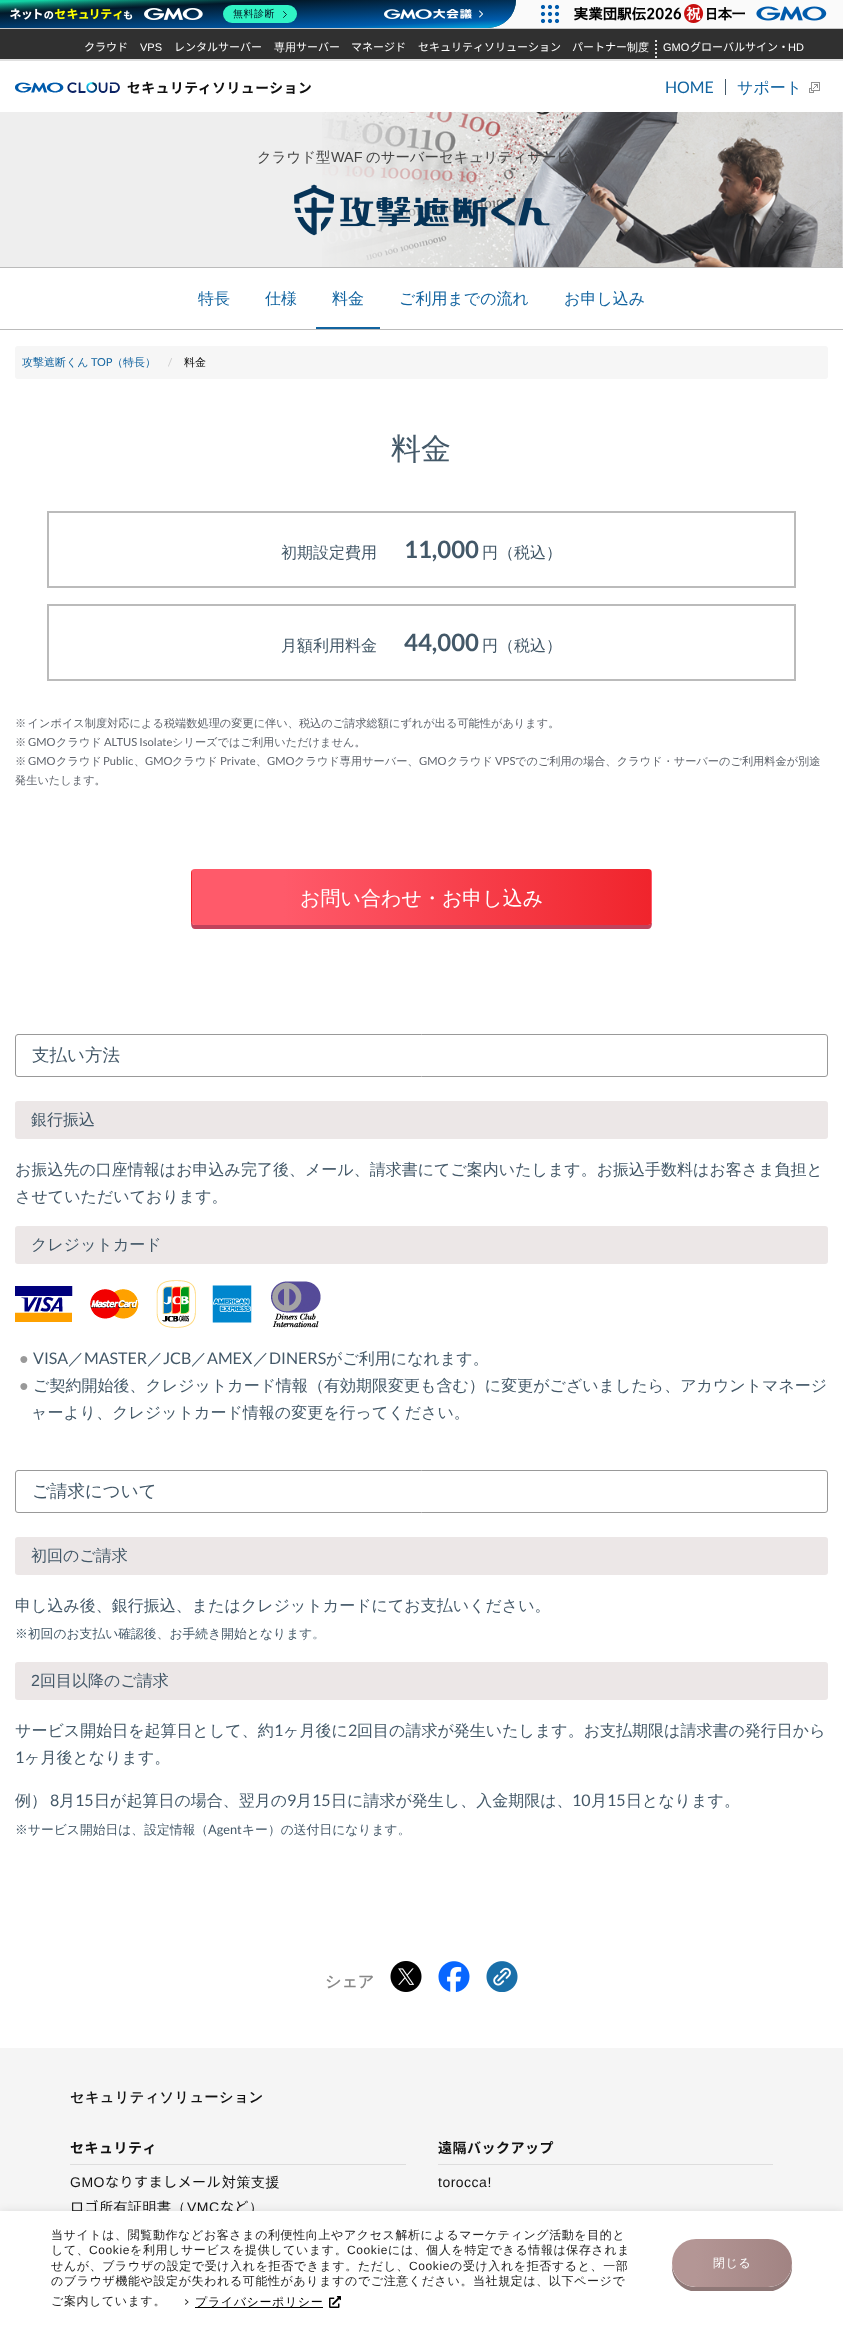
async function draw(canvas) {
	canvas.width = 843;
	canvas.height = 2331;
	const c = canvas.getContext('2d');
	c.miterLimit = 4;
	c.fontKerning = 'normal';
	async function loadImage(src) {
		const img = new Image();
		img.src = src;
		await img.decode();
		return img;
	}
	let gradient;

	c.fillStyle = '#fff';
	c.fillRect(0, 0, 843, 2331);
	c.fillStyle = '#fafafa';
	c.fillRect(488, 0, 355, 28);
	c.fillStyle = '#c8c8c8';
	c.fillRect(0, 28, 843, 1);
	gradient = c.createLinearGradient(257, -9, 259, 37);
	gradient.addColorStop(0, '#13d4a5');
	gradient.addColorStop(0.33, '#0e7365');
	gradient.addColorStop(0.76, '#0b4d4b');
	c.fillStyle = gradient;
	c.beginPath();
	c.roundRect(0, 0, 516, 28, [0, 0, 28, 0]);
	c.fill();
	gradient = c.createLinearGradient(259, 37, 257, -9);
	gradient.addColorStop(0, '#019cd9');
	gradient.addColorStop(0.15, '#005bac');
	gradient.addColorStop(0.76, '#02192a');
	gradient.addColorStop(1, '#02192a00');
	c.fillStyle = gradient;
	c.beginPath();
	c.roundRect(0, 0, 516, 28, [0, 0, 28, 0]);
	c.fill();
	c.drawImage(await loadImage('img1.png'), 10, 8, 193, 12);
	c.fillStyle = '#30f4c5';
	c.beginPath();
	c.roundRect(223, 5, 74, 18, 9);
	c.fill();
	c.letterSpacing = '0.5px';
	c.font = '500 10px WenQuanYi Zen Hei';
	c.fillStyle = '#021725';
	c.fillText('無料診断', 233, 17);
	c.beginPath();
	c.moveTo(283.5, 11.5);
	c.lineTo(286.5, 14.5);
	c.lineTo(283.5, 17.5);
	c.strokeStyle = '#021725';
	c.lineWidth = 0.9;
	c.lineCap = 'round';
	c.lineJoin = 'round';
	c.stroke();
	c.drawImage(await loadImage('img2.png'), 384, 9, 99, 10);
	c.drawImage(await loadImage('img3.png'), 540, 4, 20, 20);
	c.drawImage(await loadImage('img4.png'), 574, 4, 253, 19);
	c.fillStyle = '#303030';
	c.fillRect(0, 29, 843, 30);
	c.fillStyle = '#e0e0e0';
	c.fillRect(0, 59, 843, 2);
	c.letterSpacing = '0px';
	c.font = '100 11px Noto Sans JP';
	c.fillStyle = '#fff';
	c.fillText('クラウド', 84, 51);
	c.font = '11px Liberation Sans';
	c.fillText('VPS', 140, 51);
	c.font = '100 11px Noto Sans JP';
	c.fillText('レンタルサーバー', 174, 51);
	c.font = '500 11px WenQuanYi Zen Hei';
	c.fillText('専用', 274, 51);
	c.font = '100 11px Noto Sans JP';
	for (const [text, x, y] of [
		['サーバー', 296, 51],
		['マネージド', 351, 51],
		['セキュリティソリューション', 418, 51],
		['パートナー', 572, 51],
	]) {
		c.fillText(text, x, y);
	}
	c.font = '500 11px WenQuanYi Zen Hei';
	c.fillText('制度', 627, 51);
	c.drawImage(await loadImage('img5.png'), 655, 40, 2, 18);
	c.font = '11px Liberation Sans';
	c.fillText('GMO', 663, 51);
	c.font = '100 11px Noto Sans JP';
	c.fillText('グローバルサイン・', 690, 51);
	c.font = '11px Liberation Sans';
	c.fillText('HD', 788, 51);
	c.drawImage(await loadImage('img6.png'), 15, 81, 296, 14);
	c.fillStyle = '#435868';
	c.fillRect(725, 79, 1, 16);
	c.font = '16px Lato';
	c.fillStyle = '#1264a0';
	c.fillText('HOME', 665, 93);
	c.font = '500 16px WenQuanYi Zen Hei';
	c.fillText('サポート', 737, 93);
	c.drawImage(await loadImage('img7.png'), 809, 82, 11, 11);
	c.fillStyle = '#eee';
	c.fillRect(0, 112, 843, 155);
	c.drawImage(await loadImage('img8.png'), 322, 112, 521, 155);
	c.font = '500 14.4px WenQuanYi Zen Hei';
	c.fillStyle = '#444';
	c.fillText('クラウド型', 257, 162);
	c.font = '14.4px Liberation Sans';
	c.fillText('WAF', 331, 162);
	c.font = '500 14.4px WenQuanYi Zen Hei';
	c.fillText('のサーバーセキュリティサービ', 366, 162);
	c.drawImage(await loadImage('img9.png'), 294, 184, 256, 52);
	c.fillStyle = '#bbb';
	c.fillRect(0, 267, 843, 1);
	c.fillRect(0, 329, 843, 1);
	c.font = '500 16px WenQuanYi Zen Hei';
	c.fillStyle = '#1264a0';
	c.fillText('特長', 198, 304);
	c.fillText('仕様', 265, 304);
	c.fillRect(316, 327, 64, 2);
	for (const [text, x, y] of [
		['料金', 332, 304],
		['ご利用までの流れ', 399, 304],
		['お申し込み', 564, 304],
	]) {
		c.fillText(text, x, y);
	}
	c.fillStyle = '#f6f6f6';
	c.beginPath();
	c.roundRect(15, 346, 813, 33, 3);
	c.fill();
	c.font = '500 11px WenQuanYi Zen Hei';
	c.fillStyle = '#1264a0';
	c.fillText('攻撃遮断くん', 22, 366);
	c.font = '11px Lato';
	c.fillText('TOP', 91, 366);
	c.font = '500 11px WenQuanYi Zen Hei';
	c.fillText('（特長）', 112, 366);
	c.font = '11px Lato';
	c.fillStyle = '#cacaca';
	c.fillText('/', 168, 366);
	c.font = '500 11px WenQuanYi Zen Hei';
	c.fillStyle = '#0a0a0a';
	c.fillText('料金', 184, 366);
	c.font = '500 30px WenQuanYi Zen Hei';
	c.fillStyle = '#435868';
	c.fillText('料金', 391, 459);
	c.strokeStyle = '#bbb';
	c.lineWidth = 2;
	c.lineJoin = 'miter';
	c.strokeRect(48, 512, 747, 75);
	c.font = '500 16px WenQuanYi Zen Hei';
	c.fillText('初期設定費用', 281, 558);
	c.font = 'bold 24px Lato';
	c.fillText('11,000', 404, 558);
	c.font = '500 16px WenQuanYi Zen Hei';
	c.fillText('円（税込）', 482, 558);
	c.strokeRect(48, 605, 747, 75);
	c.fillText('月額利用料金', 281, 651);
	c.font = 'bold 24px Lato';
	c.fillText('44,000', 404, 651);
	c.font = '500 16px WenQuanYi Zen Hei';
	c.fillText('円（税込）', 482, 651);
	c.wordSpacing = '-2px';
	c.font = '500 11.2px WenQuanYi Zen Hei';
	c.fillStyle = '#5f646c';
	c.fillText('※ インボイス制度対応による税端数処理の変更に伴い、税込のご請求総額にずれが出る可能性があります。', 15, 727);
	c.wordSpacing = '0px';
	c.fillText('※', 15, 746);
	c.font = '11.2px Lato';
	c.fillText('GMO', 28, 746);
	c.font = '500 11.2px WenQuanYi Zen Hei';
	c.fillText('クラウド', 56, 746);
	c.font = '11.2px Lato';
	c.fillText('ALTUS Isolate', 104, 746);
	c.font = '500 11.2px WenQuanYi Zen Hei';
	c.fillText('シリーズではご利用いただけません。', 172, 746);
	c.fillText('※', 15, 765);
	c.font = '11.2px Lato';
	c.fillText('GMO', 28, 765);
	c.font = '500 11.2px WenQuanYi Zen Hei';
	c.fillText('クラウド', 56, 765);
	c.font = '11.2px Lato';
	c.fillText('Public', 103, 765);
	c.fillText('GMO', 145, 765);
	c.font = '500 11.2px WenQuanYi Zen Hei';
	c.fillText('クラウド', 172, 765);
	c.font = '11.2px Lato';
	c.fillText('Private', 220, 765);
	c.fillText('GMO', 267, 765);
	c.font = '500 11.2px WenQuanYi Zen Hei';
	c.fillText('クラウド専用サーバー、', 294, 765);
	c.font = '11.2px Lato';
	c.fillText('GMO', 419, 765);
	c.font = '500 11.2px WenQuanYi Zen Hei';
	c.fillText('クラウド', 447, 765);
	c.font = '11.2px Lato';
	c.fillText('VPS', 495, 765);
	c.font = '500 11.2px WenQuanYi Zen Hei';
	for (const [text, x, y] of [
		['でのご利用の場合、クラウド・サーバーのご利用料金が別途', 515, 765],
		['、', 134, 765],
		['、', 256, 765],
		['発生いたします。', 15, 784],
	]) {
		c.fillText(text, x, y);
	}
	c.fillStyle = '#c0435c';
	c.beginPath();
	c.moveTo(191, 921);
	c.bezierCurveTo(191, 924, 191, 929, 195, 929);
	c.lineTo(648, 929);
	c.bezierCurveTo(652, 929, 652, 924, 652, 921);
	c.bezierCurveTo(652, 923, 650, 925, 648, 925);
	c.lineTo(195, 925);
	c.bezierCurveTo(193, 925, 191, 923, 191, 921);
	c.closePath();
	c.fill();
	c.save();
	c.beginPath();
	c.roundRect(191, 869, 461, 56, 4);
	c.clip();
	gradient = c.createLinearGradient(-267, 897, 192, 897);
	gradient.addColorStop(0.2, '#ff5a6a');
	gradient.addColorStop(1, '#f0242c');
	c.fillStyle = gradient;
	c.fillRect(191, 869, 1, 56);
	gradient = c.createLinearGradient(192, 897, 651, 897);
	gradient.addColorStop(0.2, '#ff5a6a');
	gradient.addColorStop(1, '#f0242c');
	c.fillStyle = gradient;
	c.fillRect(192, 869, 459, 56);
	gradient = c.createLinearGradient(651, 897, 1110, 897);
	gradient.addColorStop(0.2, '#ff5a6a');
	gradient.addColorStop(1, '#f0242c');
	c.fillStyle = gradient;
	c.fillRect(651, 869, 1, 56);
	c.restore();
	c.font = '500 20px WenQuanYi Zen Hei';
	c.fillStyle = '#fff';
	c.fillText('お問い合わせ・お申し込み', 300, 905);
	c.beginPath();
	c.roundRect(15.5, 1034.5, 812, 42, 2.5);
	c.strokeStyle = '#999';
	c.lineWidth = 1;
	c.stroke();
	c.font = '500 17.5px WenQuanYi Zen Hei';
	c.fillStyle = '#435868';
	c.fillText('支払い方法', 32, 1061);
	c.fillStyle = '#ece7e7';
	c.beginPath();
	c.roundRect(15, 1101, 813, 38, 3);
	c.fill();
	c.font = '500 16px WenQuanYi Zen Hei';
	c.fillStyle = '#435868';
	for (const [text, x, y] of [
		['銀行振込', 31, 1125],
		['お振込先の口座情報はお申込み完了後、メール、請求書にてご案内いたします。お振込手数料はお客さま負担と', 15, 1175],
		['させていただいております。', 15, 1202],
	]) {
		c.fillText(text, x, y);
	}
	c.fillStyle = '#ece7e7';
	c.beginPath();
	c.roundRect(15, 1226, 813, 38, 3);
	c.fill();
	c.fillStyle = '#435868';
	c.fillText('クレジットカード', 31, 1250);
	c.drawImage(await loadImage('img10.png'), 15, 1280, 306, 48);
	c.font = '16px Liberation Sans';
	c.fillStyle = '#999';
	c.fillText('●', 19, 1364);
	c.font = '16px Lato';
	c.fillStyle = '#435868';
	c.fillText('VISA', 33, 1364);
	c.font = '500 16px WenQuanYi Zen Hei';
	c.fillText('／', 68, 1364);
	c.font = '16px Lato';
	c.fillText('MASTER', 84, 1364);
	c.font = '500 16px WenQuanYi Zen Hei';
	c.fillText('／', 147, 1364);
	c.font = '16px Lato';
	c.fillText('JCB', 163, 1364);
	c.font = '500 16px WenQuanYi Zen Hei';
	c.fillText('／', 191, 1364);
	c.font = '16px Lato';
	c.fillText('AMEX', 207, 1364);
	c.font = '500 16px WenQuanYi Zen Hei';
	c.fillText('／', 253, 1364);
	c.font = '16px Lato';
	c.fillText('DINERS', 269, 1364);
	c.font = '500 16px WenQuanYi Zen Hei';
	c.fillText('がご利用になれます。', 326, 1364);
	c.font = '16px Liberation Sans';
	c.fillStyle = '#999';
	c.fillText('●', 19, 1391);
	c.font = '500 16px WenQuanYi Zen Hei';
	c.fillStyle = '#435868';
	c.fillText('ご契約開始後、クレジットカード情報（有効期限変更も含む）に変更がございましたら、アカウントマネージ', 33, 1391);
	c.fillText('ャーより、クレジットカード情報の変更を行ってください。', 31, 1418);
	c.beginPath();
	c.roundRect(15.5, 1470.5, 812, 42, 2.5);
	c.stroke();
	c.font = '500 17.5px WenQuanYi Zen Hei';
	c.fillText('ご請求について', 32, 1497);
	c.fillStyle = '#ece7e7';
	c.beginPath();
	c.roundRect(15, 1537, 813, 38, 3);
	c.fill();
	c.font = '500 16px WenQuanYi Zen Hei';
	c.fillStyle = '#435868';
	c.fillText('初回のご請求', 31, 1561);
	c.fillText('申し込み後、銀行振込、またはクレジットカードにてお支払いください。', 15, 1611);
	c.font = '500 12.8px WenQuanYi Zen Hei';
	c.fillText('※初回のお支払い確認後、お手続き開始となります。', 15, 1638);
	c.fillStyle = '#ece7e7';
	c.beginPath();
	c.roundRect(15, 1662, 813, 38, 3);
	c.fill();
	c.font = '16px Liberation Sans';
	c.fillStyle = '#435868';
	c.fillText('2', 31, 1686);
	c.font = '500 16px WenQuanYi Zen Hei';
	c.fillText('回目以降のご請求', 40, 1686);
	c.fillText('サービス開始日を起算日として、約', 15, 1736);
	c.font = '16px Lato';
	c.fillText('1', 274, 1736);
	c.font = '500 16px WenQuanYi Zen Hei';
	c.fillText('ヶ月後に', 283, 1736);
	c.font = '16px Lato';
	c.fillText('2', 348, 1736);
	c.font = '500 16px WenQuanYi Zen Hei';
	c.fillText('回目の請求が発生いたします。お支払期限は請求書の発行日から', 357, 1736);
	c.font = '16px Lato';
	c.fillText('1', 15, 1763);
	c.font = '500 16px WenQuanYi Zen Hei';
	c.fillText('ヶ月後となります。', 24, 1763);
	c.fillText('例）', 15, 1806);
	c.font = '16px Lato';
	c.fillText('8', 50, 1806);
	c.font = '500 16px WenQuanYi Zen Hei';
	c.fillText('月', 59, 1806);
	c.font = '16px Lato';
	c.fillText('15', 75, 1806);
	c.font = '500 16px WenQuanYi Zen Hei';
	c.fillText('日が起算日の場合、翌月の', 94, 1806);
	c.font = '16px Lato';
	c.fillText('9', 287, 1806);
	c.font = '500 16px WenQuanYi Zen Hei';
	c.fillText('月', 296, 1806);
	c.font = '16px Lato';
	c.fillText('15', 312, 1806);
	c.font = '500 16px WenQuanYi Zen Hei';
	c.fillText('日に請求が発生し、入金期限は、', 331, 1806);
	c.font = '16px Lato';
	c.fillText('10', 572, 1806);
	c.font = '500 16px WenQuanYi Zen Hei';
	c.fillText('月', 591, 1806);
	c.font = '16px Lato';
	c.fillText('15', 607, 1806);
	c.font = '500 16px WenQuanYi Zen Hei';
	c.fillText('日となります。', 626, 1806);
	c.font = '500 12.8px WenQuanYi Zen Hei';
	c.fillText('※サービス開始日は、設定情報（', 15, 1834);
	c.font = '12.8px Lato';
	c.fillText('Agent', 208, 1834);
	c.font = '500 12.8px WenQuanYi Zen Hei';
	c.fillText('キー）の送付日になります。', 242, 1834);
	c.font = 'bold 16px WenQuanYi Zen Hei';
	c.fillStyle = '#888';
	c.fillText('シェア', 325, 1987);
	c.drawImage(await loadImage('img11.png'), 390, 1961, 32, 31);
	c.drawImage(await loadImage('img12.png'), 438, 1961, 32, 31);
	c.drawImage(await loadImage('img13.png'), 486, 1961, 32, 31);
	c.fillStyle = '#f5f5f5';
	c.fillRect(0, 2048, 843, 163);
	c.letterSpacing = '0.6px';
	c.font = 'bold 14px WenQuanYi Zen Hei';
	c.fillStyle = '#111';
	c.fillText('セキュリティソリューション', 70, 2102);
	c.fillStyle = '#ddd';
	c.fillRect(70, 2164, 336, 1);
	c.letterSpacing = '0.5px';
	c.font = 'bold 14px Noto Sans JP';
	c.fillStyle = '#111';
	c.fillText('セキュリティ', 70, 2153);
	c.font = '14px Liberation Sans';
	c.fillText('GMO', 70, 2187);
	c.font = '100 14px Noto Sans JP';
	c.fillText('なりすましメール', 105, 2187);
	c.font = '500 14px WenQuanYi Zen Hei';
	c.fillText('対策支援', 222, 2187);
	c.font = '100 14px Noto Sans JP';
	c.fillText('ロゴ', 70, 2212);
	c.font = '500 14px WenQuanYi Zen Hei';
	c.fillText('所有証明書（', 99, 2212);
	c.font = '14px Liberation Sans';
	c.fillText('VMC', 187, 2212);
	c.font = '100 14px Noto Sans JP';
	c.fillText('など', 220, 2212);
	c.font = '500 14px WenQuanYi Zen Hei';
	c.fillText('）', 249, 2212);
	c.fillStyle = '#ddd';
	c.fillRect(438, 2164, 335, 1);
	c.font = 'bold 14px Noto Sans JP';
	c.fillStyle = '#111';
	c.fillText('遠隔バックアップ', 438, 2153);
	c.font = '14px Liberation Sans';
	c.fillText('torocca!', 438, 2187);
	c.fillStyle = '#0000001a';
	c.filter = 'blur(4px)';
	c.beginPath();
	c.rect(0, 2211, 843, 120);
	c.fill();
	c.filter = 'none';
	c.fillStyle = '#fff';
	c.fillRect(0, 2211, 843, 120);
	c.letterSpacing = '0.6px';
	c.font = '500 12px WenQuanYi Zen Hei';
	c.fillStyle = '#222';
	c.fillText('当サイトは、閲覧動作などお客さまの利便性向上やアクセス解析によるマーケティング活動を目的と', 51, 2239);
	c.fillText('して、', 51, 2254);
	c.font = '12px Liberation Sans';
	c.fillText('Cookie', 89, 2254);
	c.font = '500 12px WenQuanYi Zen Hei';
	c.fillText('を利用しサービスを提供しています。', 130, 2254);
	c.font = '12px Liberation Sans';
	c.fillText('Cookie', 347, 2254);
	c.font = '500 12px WenQuanYi Zen Hei';
	c.fillText('には、個人を特定できる情報は保存されま', 388, 2254);
	c.fillText('せんが、ブラウザの設定で受け入れを拒否できます。ただし、', 51, 2270);
	c.font = '12px Liberation Sans';
	c.fillText('Cookie', 409, 2270);
	c.font = '500 12px WenQuanYi Zen Hei';
	for (const [text, x, y] of [
		['の受け入れを拒否すると、一部', 450, 2270],
		['のブラウザ機能や設定が失われる可能性がありますのでご注意ください。当社規定は、以下ページで', 51, 2285],
		['ご案内しています。', 51, 2305],
	]) {
		c.fillText(text, x, y);
	}
	c.beginPath();
	c.moveTo(185.5, 2299);
	c.lineTo(188.5, 2302);
	c.lineTo(188, 2302.5);
	c.lineTo(185, 2300);
	c.closePath();
	c.fill();
	c.beginPath();
	c.moveTo(188, 2301.5);
	c.lineTo(188.5, 2302);
	c.lineTo(185.5, 2305);
	c.lineTo(185, 2304);
	c.closePath();
	c.fill();
	c.fillStyle = '#000';
	c.fillRect(195, 2307, 128, 1);
	c.fillText('プライバシーポリシー', 195, 2306);
	c.drawImage(await loadImage('img14.png'), 329, 2296, 12, 12);
	c.fillStyle = '#8f7877';
	c.beginPath();
	c.moveTo(672, 2265);
	c.bezierCurveTo(671, 2277, 679, 2288, 691, 2291);
	c.lineTo(708, 2291);
	c.lineTo(756, 2291);
	c.lineTo(773, 2291);
	c.bezierCurveTo(785, 2288, 793, 2277, 792, 2265);
	c.bezierCurveTo(791, 2277, 781, 2287, 768, 2287);
	c.lineTo(696, 2287);
	c.bezierCurveTo(683, 2287, 673, 2277, 672, 2265);
	c.closePath();
	c.fill();
	gradient = c.createLinearGradient(672, 2263, 792, 2263);
	gradient.addColorStop(0.2, '#b49695');
	gradient.addColorStop(1, '#a18382');
	c.fillStyle = gradient;
	c.beginPath();
	c.roundRect(672, 2239, 120, 48, 24);
	c.fill();
	c.fillStyle = '#fff';
	c.fillText('閉じる', 713, 2267);
}

draw(document.querySelector('canvas'));
